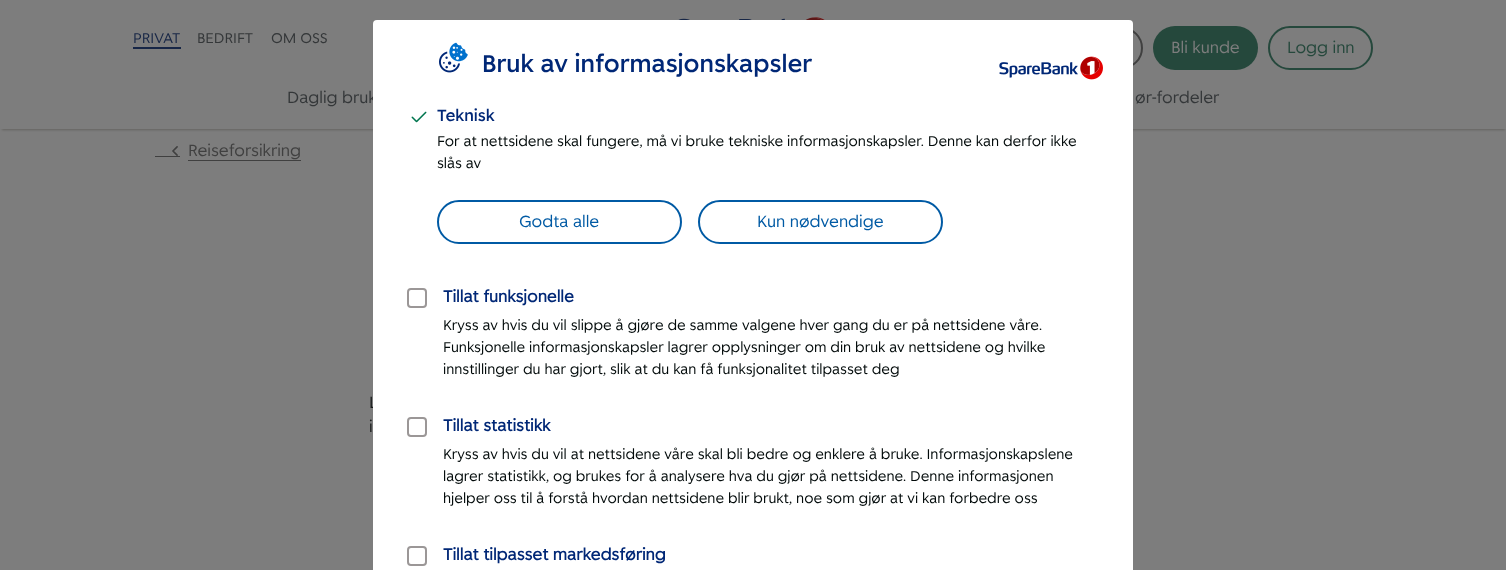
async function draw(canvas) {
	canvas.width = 1506;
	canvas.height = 570;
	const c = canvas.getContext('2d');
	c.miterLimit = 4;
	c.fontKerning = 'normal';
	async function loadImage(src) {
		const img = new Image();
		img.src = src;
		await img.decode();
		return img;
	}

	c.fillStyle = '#7d7d7d';
	c.fillRect(0, 0, 1506, 570);
	c.save();
	c.beginPath();
	c.rect(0, 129, 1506, 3);
	c.clip();
	c.fillStyle = '#646360';
	c.filter = 'blur(1px)';
	c.beginPath();
	c.rect(2, 4, 1503, 126);
	c.fill();
	c.filter = 'none';
	c.restore();
	c.drawImage(await loadImage('img1.png'), 678, 17, 147, 3);
	c.fillStyle = '#172646';
	c.fillRect(133, 47, 48, 2);
	c.font = '14px "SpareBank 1"';
	c.fillText('PRIVAT', 133, 43);
	c.fillStyle = '#343739';
	c.fillText('BEDRIFT', 197, 43);
	c.fillText('OM OSS', 271, 43);
	c.beginPath();
	c.roundRect(1059, 28, 83, 40, 20);
	c.strokeStyle = '#404040';
	c.lineWidth = 2;
	c.stroke();
	c.fillStyle = '#25483c';
	c.beginPath();
	c.roundRect(1153, 26, 105, 44, 22);
	c.fill();
	c.font = '16px "SpareBank 1"';
	c.fillStyle = '#7d7d7d';
	c.fillText('Bli kunde', 1171, 53);
	c.beginPath();
	c.roundRect(1269, 27, 103, 42, 21);
	c.strokeStyle = '#25483c';
	c.stroke();
	c.fillStyle = '#25483c';
	c.fillText('Logg inn', 1287, 53);
	c.fillStyle = '#343739';
	c.fillText('Daglig bruk', 287, 103);
	c.fillText('ør-fordeler', 1135, 103);
	c.fillStyle = '#404040';
	c.fillRect(155, 156, 25, 1);
	c.fillRect(188, 160, 113, 1);
	c.drawImage(await loadImage('img2.png'), 172, 146, 6, 10);
	c.fillText('Reiseforsikring', 188, 156);
	c.fillStyle = '#181b1b';
	c.fillText('L', 369, 408);
	c.fillText('i', 369, 432);
	c.fillStyle = '#fff';
	c.beginPath();
	c.roundRect(373, 20, 760, 550, [4, 4, 0, 0]);
	c.fill();
	c.drawImage(await loadImage('img3.png'), 439, 42, 29, 31);
	c.font = '500 24px "SpareBank 1"';
	c.fillStyle = '#002776';
	c.fillText('Bruk av informasjonskapsler', 482, 72);
	c.drawImage(await loadImage('img4.png'), 411, 111, 16, 12);
	c.font = '500 16px "SpareBank 1"';
	c.fillText('Teknisk', 437, 121);
	c.font = '14px "SpareBank 1"';
	c.fillStyle = '#020a0a';
	c.fillText('For at nettsidene skal fungere, må vi bruke tekniske informasjonskapsler. Denne kan derfor ikke', 437, 146);
	c.fillText('slås av', 437, 168);
	c.beginPath();
	c.roundRect(438, 201, 243, 42, 21);
	c.strokeStyle = '#005aa4';
	c.stroke();
	c.font = '16px "SpareBank 1"';
	c.fillStyle = '#005aa4';
	c.fillText('Godta alle', 519, 227);
	c.beginPath();
	c.roundRect(699, 201, 243, 42, 21);
	c.stroke();
	c.fillText('Kun nødvendige', 757, 227);
	c.beginPath();
	c.roundRect(408, 289, 18, 18, 3);
	c.strokeStyle = '#9b9797';
	c.stroke();
	c.font = 'bold 16px "SpareBank 1"';
	c.fillStyle = '#002776';
	c.fillText('Tillat funksjonelle', 443, 302);
	c.font = '14px "SpareBank 1"';
	c.fillStyle = '#020a0a';
	for (const [text, x, y] of [
		['Kryss av hvis du vil slippe å gjøre de samme valgene hver gang du er på nettsidene våre.', 443, 330],
		['Funksjonelle informasjonskapsler lagrer opplysninger om din bruk av nettsidene og hvilke', 443, 352],
		['innstillinger du har gjort, slik at du kan få funksjonalitet tilpasset deg', 443, 374],
	]) {
		c.fillText(text, x, y);
	}
	c.beginPath();
	c.roundRect(408, 418, 18, 18, 3);
	c.stroke();
	c.font = 'bold 16px "SpareBank 1"';
	c.fillStyle = '#002776';
	c.fillText('Tillat statistikk', 443, 431);
	c.font = '14px "SpareBank 1"';
	c.fillStyle = '#020a0a';
	for (const [text, x, y] of [
		['Kryss av hvis du vil at nettsidene våre skal bli bedre og enklere å bruke. Informasjonskapslene', 443, 459],
		['lagrer statistikk, og brukes for å analysere hva du gjør på nettsidene. Denne informasjonen', 443, 481],
		['hjelper oss til å forstå hvordan nettsidene blir brukt, noe som gjør at vi kan forbedre oss', 443, 503],
	]) {
		c.fillText(text, x, y);
	}
	c.beginPath();
	c.roundRect(408, 547, 18, 18, 3);
	c.stroke();
	c.font = 'bold 16px "SpareBank 1"';
	c.fillStyle = '#002776';
	c.fillText('Tillat tilpasset markedsføring', 443, 560);
	c.drawImage(await loadImage('img5.png'), 999, 56, 104, 24);
}

draw(document.querySelector('canvas'));
